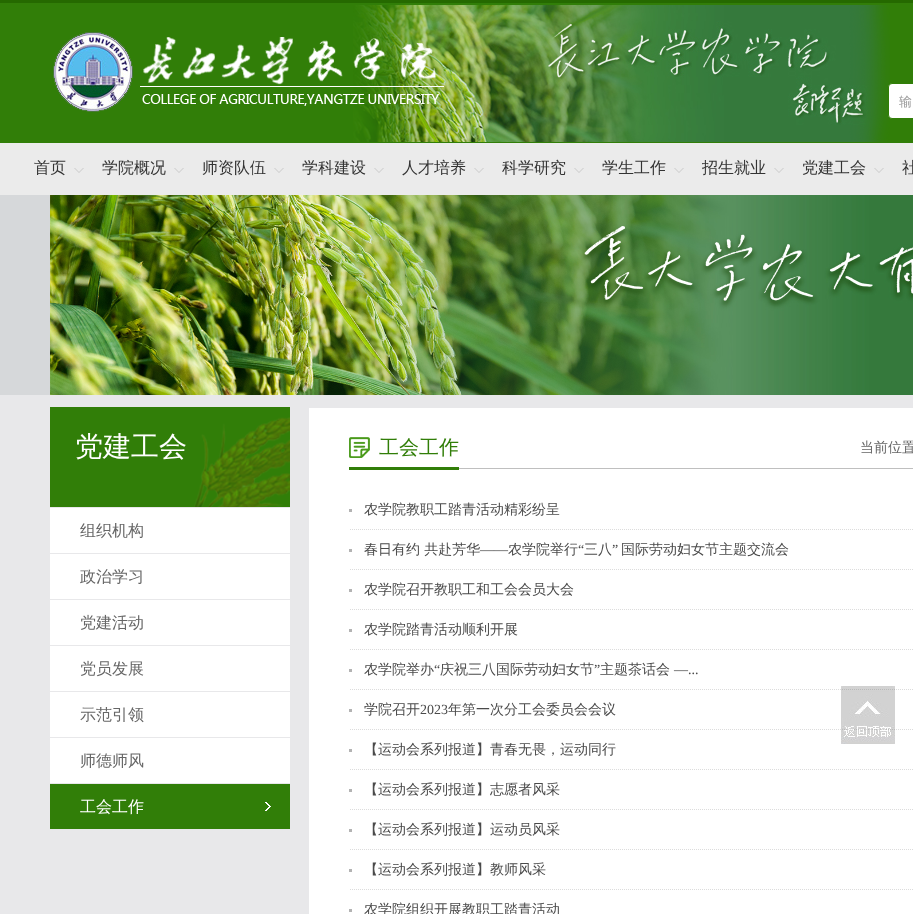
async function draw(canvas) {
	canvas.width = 913;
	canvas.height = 914;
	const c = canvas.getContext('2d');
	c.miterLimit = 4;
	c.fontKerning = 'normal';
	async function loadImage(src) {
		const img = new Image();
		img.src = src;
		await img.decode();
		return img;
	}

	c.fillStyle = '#e8e8ea';
	c.fillRect(0, 0, 913, 914);
	c.fillStyle = '#317e08';
	c.fillRect(0, 3, 913, 140);
	c.fillStyle = '#256900';
	c.fillRect(0, 0, 913, 3);
	c.drawImage(await loadImage('img1.png'), 353, 5, 537, 137);
	c.drawImage(await loadImage('img2.png'), 53, 32, 391, 80);
	c.fillStyle = '#fff';
	c.beginPath();
	c.roundRect(888.5, 83.5, 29, 35, 3.5);
	c.fill();
	c.strokeStyle = '#317e08';
	c.stroke();
	c.font = '500 13px WenQuanYi Zen Hei';
	c.fillStyle = '#999';
	c.fillText('输', 899, 106);
	c.fillStyle = '#ebebeb';
	c.fillRect(0, 143, 913, 52);
	c.drawImage(await loadImage('img3.png'), 74, 168, 10, 5);
	c.font = '500 16px WenQuanYi Zen Hei';
	c.fillStyle = '#333';
	c.fillText('首页', 34, 173);
	c.drawImage(await loadImage('img3.png'), 174, 168, 10, 5);
	c.fillText('学院概况', 102, 173);
	c.drawImage(await loadImage('img3.png'), 274, 168, 10, 5);
	c.fillText('师资队伍', 202, 173);
	c.drawImage(await loadImage('img3.png'), 374, 168, 10, 5);
	c.fillText('学科建设', 302, 173);
	c.drawImage(await loadImage('img3.png'), 474, 168, 10, 5);
	c.fillText('人才培养', 402, 173);
	c.drawImage(await loadImage('img3.png'), 574, 168, 10, 5);
	c.fillText('科学研究', 502, 173);
	c.drawImage(await loadImage('img3.png'), 674, 168, 10, 5);
	c.fillText('学生工作', 602, 173);
	c.drawImage(await loadImage('img3.png'), 774, 168, 10, 5);
	c.fillText('招生就业', 702, 173);
	c.drawImage(await loadImage('img3.png'), 874, 168, 10, 5);
	c.fillText('党建工会', 802, 173);
	c.fillText('社', 902, 173);
	c.fillStyle = '#d6d8da';
	c.fillRect(0, 195, 50, 200);
	c.drawImage(await loadImage('img4.png'), 50, 195, 863, 200);
	c.fillStyle = '#317e08';
	c.fillRect(50, 407, 240, 100);
	c.drawImage(await loadImage('img5.png'), 194, 417, 96, 90);
	c.font = '500 28px WenQuanYi Zen Hei';
	c.fillStyle = '#fff';
	c.fillText('党建工会', 75, 456);
	c.fillRect(50, 508, 240, 45);
	c.font = '500 16px WenQuanYi Zen Hei';
	c.fillStyle = '#666';
	c.fillText('组织机构', 80, 536);
	c.fillStyle = '#fff';
	c.fillRect(50, 554, 240, 45);
	c.fillStyle = '#666';
	c.fillText('政治学习', 80, 582);
	c.fillStyle = '#fff';
	c.fillRect(50, 600, 240, 45);
	c.fillStyle = '#666';
	c.fillText('党建活动', 80, 628);
	c.fillStyle = '#fff';
	c.fillRect(50, 646, 240, 45);
	c.fillStyle = '#666';
	c.fillText('党员发展', 80, 674);
	c.fillStyle = '#fff';
	c.fillRect(50, 692, 240, 45);
	c.fillStyle = '#666';
	c.fillText('示范引领', 80, 720);
	c.fillStyle = '#fff';
	c.fillRect(50, 738, 240, 45);
	c.fillStyle = '#666';
	c.fillText('师德师风', 80, 766);
	c.fillStyle = '#317e08';
	c.fillRect(50, 784, 240, 45);
	c.drawImage(await loadImage('img6.png'), 265, 802, 6, 9);
	c.fillStyle = '#fff';
	c.fillText('工会工作', 80, 812);
	c.fillRect(309, 408, 604, 506);
	c.fillStyle = '#bfbfbf';
	c.fillRect(459, 468, 454, 1);
	c.drawImage(await loadImage('img7.png'), 349, 437, 21, 21);
	c.fillStyle = '#317e08';
	c.fillRect(349, 467, 110, 3);
	c.font = '500 20px WenQuanYi Zen Hei';
	c.fillText('工会工作', 379, 454);
	c.font = '500 14px WenQuanYi Zen Hei';
	c.fillStyle = '#666';
	c.fillText('当前位置', 860, 452);
	c.drawImage(await loadImage('img8.png'), 350, 529, 563, 1);
	c.fillStyle = '#b3b3b3';
	c.fillRect(349, 509, 3, 3);
	c.fillStyle = '#4a4a4a';
	c.fillText('农学院教职工踏青活动精彩纷呈', 364, 514);
	c.drawImage(await loadImage('img8.png'), 350, 569, 563, 1);
	c.fillStyle = '#b3b3b3';
	c.fillRect(349, 549, 3, 3);
	c.fillStyle = '#4a4a4a';
	c.fillText('春日有约 共赴芳华', 364, 554);
	c.fillText('农学院举行', 508, 554);
	c.font = '14px Liberation Serif';
	c.fillText('“', 578, 554);
	c.font = '500 14px WenQuanYi Zen Hei';
	c.fillText('三八', 584, 554);
	c.font = '14px Liberation Serif';
	c.fillText('”', 612, 554);
	c.font = '500 14px WenQuanYi Zen Hei';
	c.fillText('国际劳动妇女节主题交流会', 621, 554);
	c.font = '14px Liberation Serif';
	c.fillText('——', 480, 554);
	c.drawImage(await loadImage('img8.png'), 350, 609, 563, 1);
	c.fillStyle = '#b3b3b3';
	c.fillRect(349, 589, 3, 3);
	c.font = '500 14px WenQuanYi Zen Hei';
	c.fillStyle = '#4a4a4a';
	c.fillText('农学院召开教职工和工会会员大会', 364, 594);
	c.drawImage(await loadImage('img8.png'), 350, 649, 563, 1);
	c.fillStyle = '#b3b3b3';
	c.fillRect(349, 629, 3, 3);
	c.fillStyle = '#4a4a4a';
	c.fillText('农学院踏青活动顺利开展', 364, 634);
	c.drawImage(await loadImage('img8.png'), 350, 689, 563, 1);
	c.fillStyle = '#b3b3b3';
	c.fillRect(349, 669, 3, 3);
	c.fillStyle = '#4a4a4a';
	c.fillText('农学院举办', 364, 674);
	c.font = '14px Liberation Serif';
	c.fillText('“', 434, 674);
	c.font = '500 14px WenQuanYi Zen Hei';
	c.fillText('庆祝三八国际劳动妇女节', 440, 674);
	c.font = '14px Liberation Serif';
	c.fillText('”', 594, 674);
	c.font = '500 14px WenQuanYi Zen Hei';
	c.fillText('主题茶话会', 600, 674);
	c.font = '14px Liberation Serif';
	c.fillText('—...', 674, 674);
	c.drawImage(await loadImage('img8.png'), 350, 729, 563, 1);
	c.fillStyle = '#b3b3b3';
	c.fillRect(349, 709, 3, 3);
	c.font = '500 14px WenQuanYi Zen Hei';
	c.fillStyle = '#4a4a4a';
	c.fillText('学院召开', 364, 714);
	c.font = '14px Liberation Serif';
	c.fillText('2023', 420, 714);
	c.font = '500 14px WenQuanYi Zen Hei';
	c.fillText('年第一次分工会委员会会议', 448, 714);
	c.drawImage(await loadImage('img8.png'), 350, 769, 563, 1);
	c.fillStyle = '#b3b3b3';
	c.fillRect(349, 749, 3, 3);
	c.fillStyle = '#4a4a4a';
	c.fillText('【运动会系列报道】青春无畏，运动同行', 364, 754);
	c.drawImage(await loadImage('img8.png'), 350, 809, 563, 1);
	c.fillStyle = '#b3b3b3';
	c.fillRect(349, 789, 3, 3);
	c.fillStyle = '#4a4a4a';
	c.fillText('【运动会系列报道】志愿者风采', 364, 794);
	c.drawImage(await loadImage('img8.png'), 350, 849, 563, 1);
	c.fillStyle = '#b3b3b3';
	c.fillRect(349, 829, 3, 3);
	c.fillStyle = '#4a4a4a';
	c.fillText('【运动会系列报道】运动员风采', 364, 834);
	c.drawImage(await loadImage('img8.png'), 350, 889, 563, 1);
	c.fillStyle = '#b3b3b3';
	c.fillRect(349, 869, 3, 3);
	c.fillStyle = '#4a4a4a';
	c.fillText('【运动会系列报道】教师风采', 364, 874);
	c.fillStyle = '#b3b3b3';
	c.fillRect(349, 909, 3, 3);
	c.fillStyle = '#4a4a4a';
	c.fillText('农学院组织开展教职工踏青活动', 364, 914);
	c.drawImage(await loadImage('img9.png'), 841, 686, 54, 58);
}

draw(document.querySelector('canvas'));
